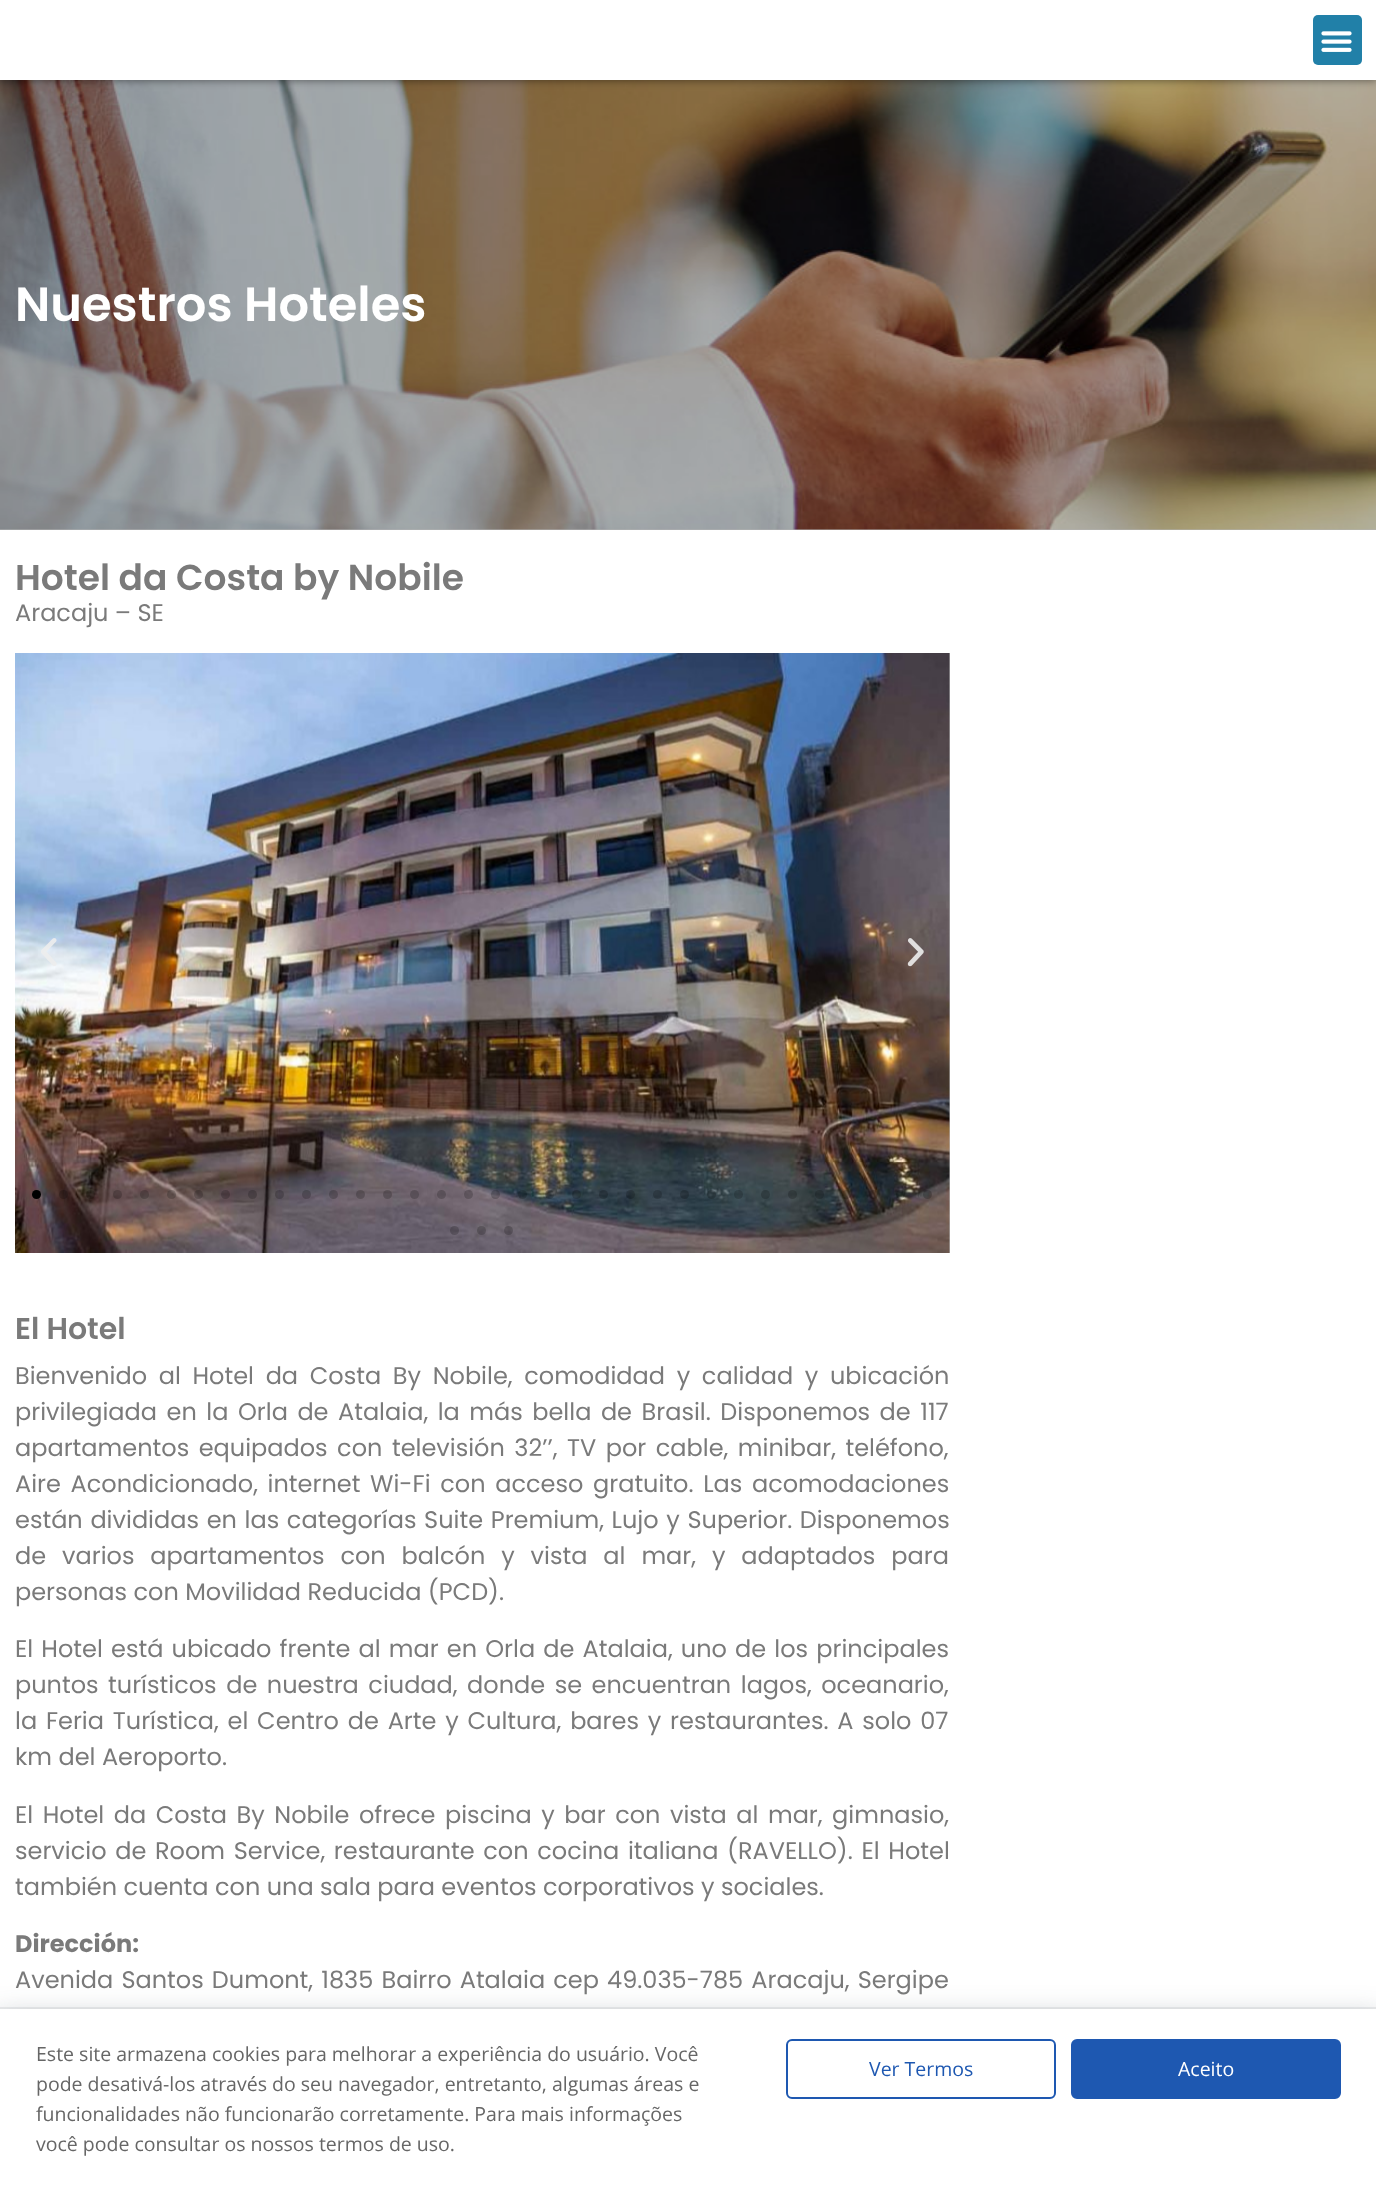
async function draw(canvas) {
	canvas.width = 1376;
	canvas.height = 2188;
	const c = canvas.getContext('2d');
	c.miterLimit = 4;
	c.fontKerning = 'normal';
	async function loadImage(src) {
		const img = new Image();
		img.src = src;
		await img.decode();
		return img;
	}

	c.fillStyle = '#fff';
	c.fillRect(0, 0, 1376, 2188);
	c.fillStyle = '#b3b3b3';
	c.fillRect(0, 529, 1376, 1);
	c.drawImage(await loadImage('img2.png'), 0, 80, 1376, 450);
	c.fillStyle = '#00000080';
	c.filter = 'blur(4px)';
	c.beginPath();
	c.rect(0, 0, 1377, 80);
	c.fill();
	c.filter = 'none';
	c.fillStyle = '#fff';
	c.fillRect(0, 0, 1376, 80);
	c.fillStyle = '#2180a8';
	c.beginPath();
	c.roundRect(1313, 15, 49, 50, 5);
	c.fill();
	c.drawImage(await loadImage('img1.png'), 1321, 31, 31, 21);
	c.font = '600 48px Poppins';
	c.fillStyle = '#fff';
	c.fillText('Nuestros Hoteles', 15, 321);
	c.font = '600 36px Poppins';
	c.fillStyle = '#7a7a7a';
	c.fillText('Hotel da Costa by Nobile', 15, 590);
	c.font = '24px Poppins';
	c.fillText('Aracaju – SE', 15, 621);
	c.fillStyle = '#bbb';
	c.fillRect(949, 653, 1, 600);
	c.drawImage(await loadImage('img3.png'), 15, 653, 935, 600);
	c.drawImage(await loadImage('img4.png'), 41, 938, 16, 28);
	c.drawImage(await loadImage('img5.png'), 907, 938, 17, 29);
	c.fillStyle = '#000';
	c.beginPath();
	c.arc(36.5, 1194.5, 4.5, 0, 2 * Math.PI);
	c.fill();
	c.fillStyle = '#00000033';
	c.beginPath();
	c.arc(63.5, 1194.5, 4.5, 0, 2 * Math.PI);
	c.fill();
	c.beginPath();
	c.arc(90.5, 1194.5, 4.5, 0, 2 * Math.PI);
	c.fill();
	c.beginPath();
	c.arc(117.5, 1194.5, 4.5, 0, 2 * Math.PI);
	c.fill();
	c.beginPath();
	c.arc(144.5, 1194.5, 4.5, 0, 2 * Math.PI);
	c.fill();
	c.beginPath();
	c.arc(171.5, 1194.5, 4.5, 0, 2 * Math.PI);
	c.fill();
	c.beginPath();
	c.arc(198.5, 1194.5, 4.5, 0, 2 * Math.PI);
	c.fill();
	c.beginPath();
	c.arc(225.5, 1194.5, 4.5, 0, 2 * Math.PI);
	c.fill();
	c.beginPath();
	c.arc(252.5, 1194.5, 4.5, 0, 2 * Math.PI);
	c.fill();
	c.beginPath();
	c.arc(279.5, 1194.5, 4.5, 0, 2 * Math.PI);
	c.fill();
	c.beginPath();
	c.arc(306.5, 1194.5, 4.5, 0, 2 * Math.PI);
	c.fill();
	c.beginPath();
	c.arc(333.5, 1194.5, 4.5, 0, 2 * Math.PI);
	c.fill();
	c.beginPath();
	c.arc(360.5, 1194.5, 4.5, 0, 2 * Math.PI);
	c.fill();
	c.beginPath();
	c.arc(387.5, 1194.5, 4.5, 0, 2 * Math.PI);
	c.fill();
	c.beginPath();
	c.arc(414.5, 1194.5, 4.5, 0, 2 * Math.PI);
	c.fill();
	c.beginPath();
	c.arc(441.5, 1194.5, 4.5, 0, 2 * Math.PI);
	c.fill();
	c.beginPath();
	c.arc(468.5, 1194.5, 4.5, 0, 2 * Math.PI);
	c.fill();
	c.beginPath();
	c.arc(495.5, 1194.5, 4.5, 0, 2 * Math.PI);
	c.fill();
	c.beginPath();
	c.arc(522.5, 1194.5, 4.5, 0, 2 * Math.PI);
	c.fill();
	c.beginPath();
	c.arc(549.5, 1194.5, 4.5, 0, 2 * Math.PI);
	c.fill();
	c.beginPath();
	c.arc(576.5, 1194.5, 4.5, 0, 2 * Math.PI);
	c.fill();
	c.beginPath();
	c.arc(603.5, 1194.5, 4.5, 0, 2 * Math.PI);
	c.fill();
	c.beginPath();
	c.arc(630.5, 1194.5, 4.5, 0, 2 * Math.PI);
	c.fill();
	c.beginPath();
	c.arc(657.5, 1194.5, 4.5, 0, 2 * Math.PI);
	c.fill();
	c.beginPath();
	c.arc(684.5, 1194.5, 4.5, 0, 2 * Math.PI);
	c.fill();
	c.beginPath();
	c.arc(711.5, 1194.5, 4.5, 0, 2 * Math.PI);
	c.fill();
	c.beginPath();
	c.arc(738.5, 1194.5, 4.5, 0, 2 * Math.PI);
	c.fill();
	c.beginPath();
	c.arc(765.5, 1194.5, 4.5, 0, 2 * Math.PI);
	c.fill();
	c.beginPath();
	c.arc(792.5, 1194.5, 4.5, 0, 2 * Math.PI);
	c.fill();
	c.beginPath();
	c.arc(819.5, 1194.5, 4.5, 0, 2 * Math.PI);
	c.fill();
	c.beginPath();
	c.arc(846.5, 1194.5, 4.5, 0, 2 * Math.PI);
	c.fill();
	c.beginPath();
	c.arc(873.5, 1194.5, 4.5, 0, 2 * Math.PI);
	c.fill();
	c.beginPath();
	c.arc(900.5, 1194.5, 4.5, 0, 2 * Math.PI);
	c.fill();
	c.beginPath();
	c.arc(927.5, 1194.5, 4.5, 0, 2 * Math.PI);
	c.fill();
	c.beginPath();
	c.arc(454.5, 1230.5, 4.5, 0, 2 * Math.PI);
	c.fill();
	c.beginPath();
	c.arc(481.5, 1230.5, 4.5, 0, 2 * Math.PI);
	c.fill();
	c.beginPath();
	c.arc(508.5, 1230.5, 4.5, 0, 2 * Math.PI);
	c.fill();
	c.font = '600 30px Poppins';
	c.fillStyle = '#7a7a7a';
	c.fillText('El Hotel', 15, 1339);
	c.wordSpacing = '5.25px';
	c.font = '24px Poppins';
	c.fillText('Bienvenido al Hotel da Costa By Nobile, comodidad y calidad y ubicación', 15, 1384);
	c.wordSpacing = '3.1px';
	c.fillText('privilegiada en la Orla de Atalaia, la más bella de Brasil. Disponemos de 117', 15, 1420);
	c.fillText('apartamentos equipados con televisión 32’’, TV por cable, minibar, teléfono,', 15, 1456);
	c.wordSpacing = '3.25px';
	c.fillText('Aire Acondicionado, internet Wi-Fi con acceso gratuito. Las acomodaciones', 15, 1492);
	c.wordSpacing = '1.25px';
	c.fillText('están divididas en las categorías Suite Premium, Lujo y Superior. Disponemos', 15, 1528);
	c.wordSpacing = '9.5px';
	c.fillText('de varios apartamentos con balcón y vista al mar, y adaptados para', 15, 1564);
	c.wordSpacing = '0px';
	c.fillText('personas con Movilidad Reducida (PCD).', 15, 1600);
	c.wordSpacing = '1.75px';
	c.fillText('El Hotel está ubicado frente al mar en Orla de Atalaia, uno de los principales', 15, 1657);
	c.wordSpacing = '3.1px';
	c.fillText('puntos turísticos de nuestra ciudad, donde se encuentran lagos, oceanario,', 15, 1693);
	c.wordSpacing = '2.4px';
	c.fillText('la Feria Turística, el Centro de Arte y Cultura, bares y restaurantes. A solo 07', 15, 1729);
	c.wordSpacing = '0px';
	c.fillText('km del Aeroporto.', 15, 1765);
	c.wordSpacing = '3.1px';
	c.fillText('El Hotel da Costa By Nobile ofrece piscina y bar con vista al mar, gimnasio,', 15, 1823);
	c.wordSpacing = '2.25px';
	c.fillText('servicio de Room Service, restaurante con cocina italiana (RAVELLO). El Hotel', 15, 1859);
	c.wordSpacing = '0px';
	c.fillText('también cuenta con una sala para eventos corporativos y sociales.', 15, 1895);
	c.font = 'bold 24px Poppins';
	c.fillText('Dirección:', 15, 1952);
	c.wordSpacing = '1.75px';
	c.font = '24px Poppins';
	c.fillText('Avenida Santos Dumont, 1835 Bairro Atalaia cep 49.035-785 Aracaju, Sergipe', 15, 1988);
	c.fillStyle = '#242f424f';
	c.filter = 'blur(15px)';
	c.beginPath();
	c.rect(-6, 2018, 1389, 162);
	c.fill();
	c.filter = 'none';
	c.strokeStyle = '#242f4214';
	c.lineWidth = 2;
	c.strokeRect(-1, 2008, 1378, 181);
	c.fillStyle = '#fff';
	c.fillRect(0, 2009, 1376, 179);
	c.wordSpacing = '0px';
	c.font = '19.5px Open Sans';
	c.fillStyle = '#666';
	for (const [text, x, y] of [
		['Este site armazena cookies para melhorar a experiência do usuário. Você', 36, 2061],
		['pode desativá-los através do seu navegador, entretanto, algumas áreas e', 36, 2091],
		['funcionalidades não funcionarão corretamente. Para mais informações', 36, 2121],
		['você pode consultar os nossos termos de uso.', 36, 2151],
	]) {
		c.fillText(text, x, y);
	}
	c.beginPath();
	c.roundRect(787, 2040, 268, 58, 5);
	c.strokeStyle = '#1e58b1';
	c.stroke();
	c.fillStyle = '#1e58b1';
	c.fillText('Ver Termos', 869, 2076);
	c.beginPath();
	c.roundRect(1072, 2040, 268, 58, 5);
	c.fill();
	c.stroke();
	c.fillStyle = '#fff';
	c.fillText('Aceito', 1178, 2076);
}

draw(document.querySelector('canvas'));
